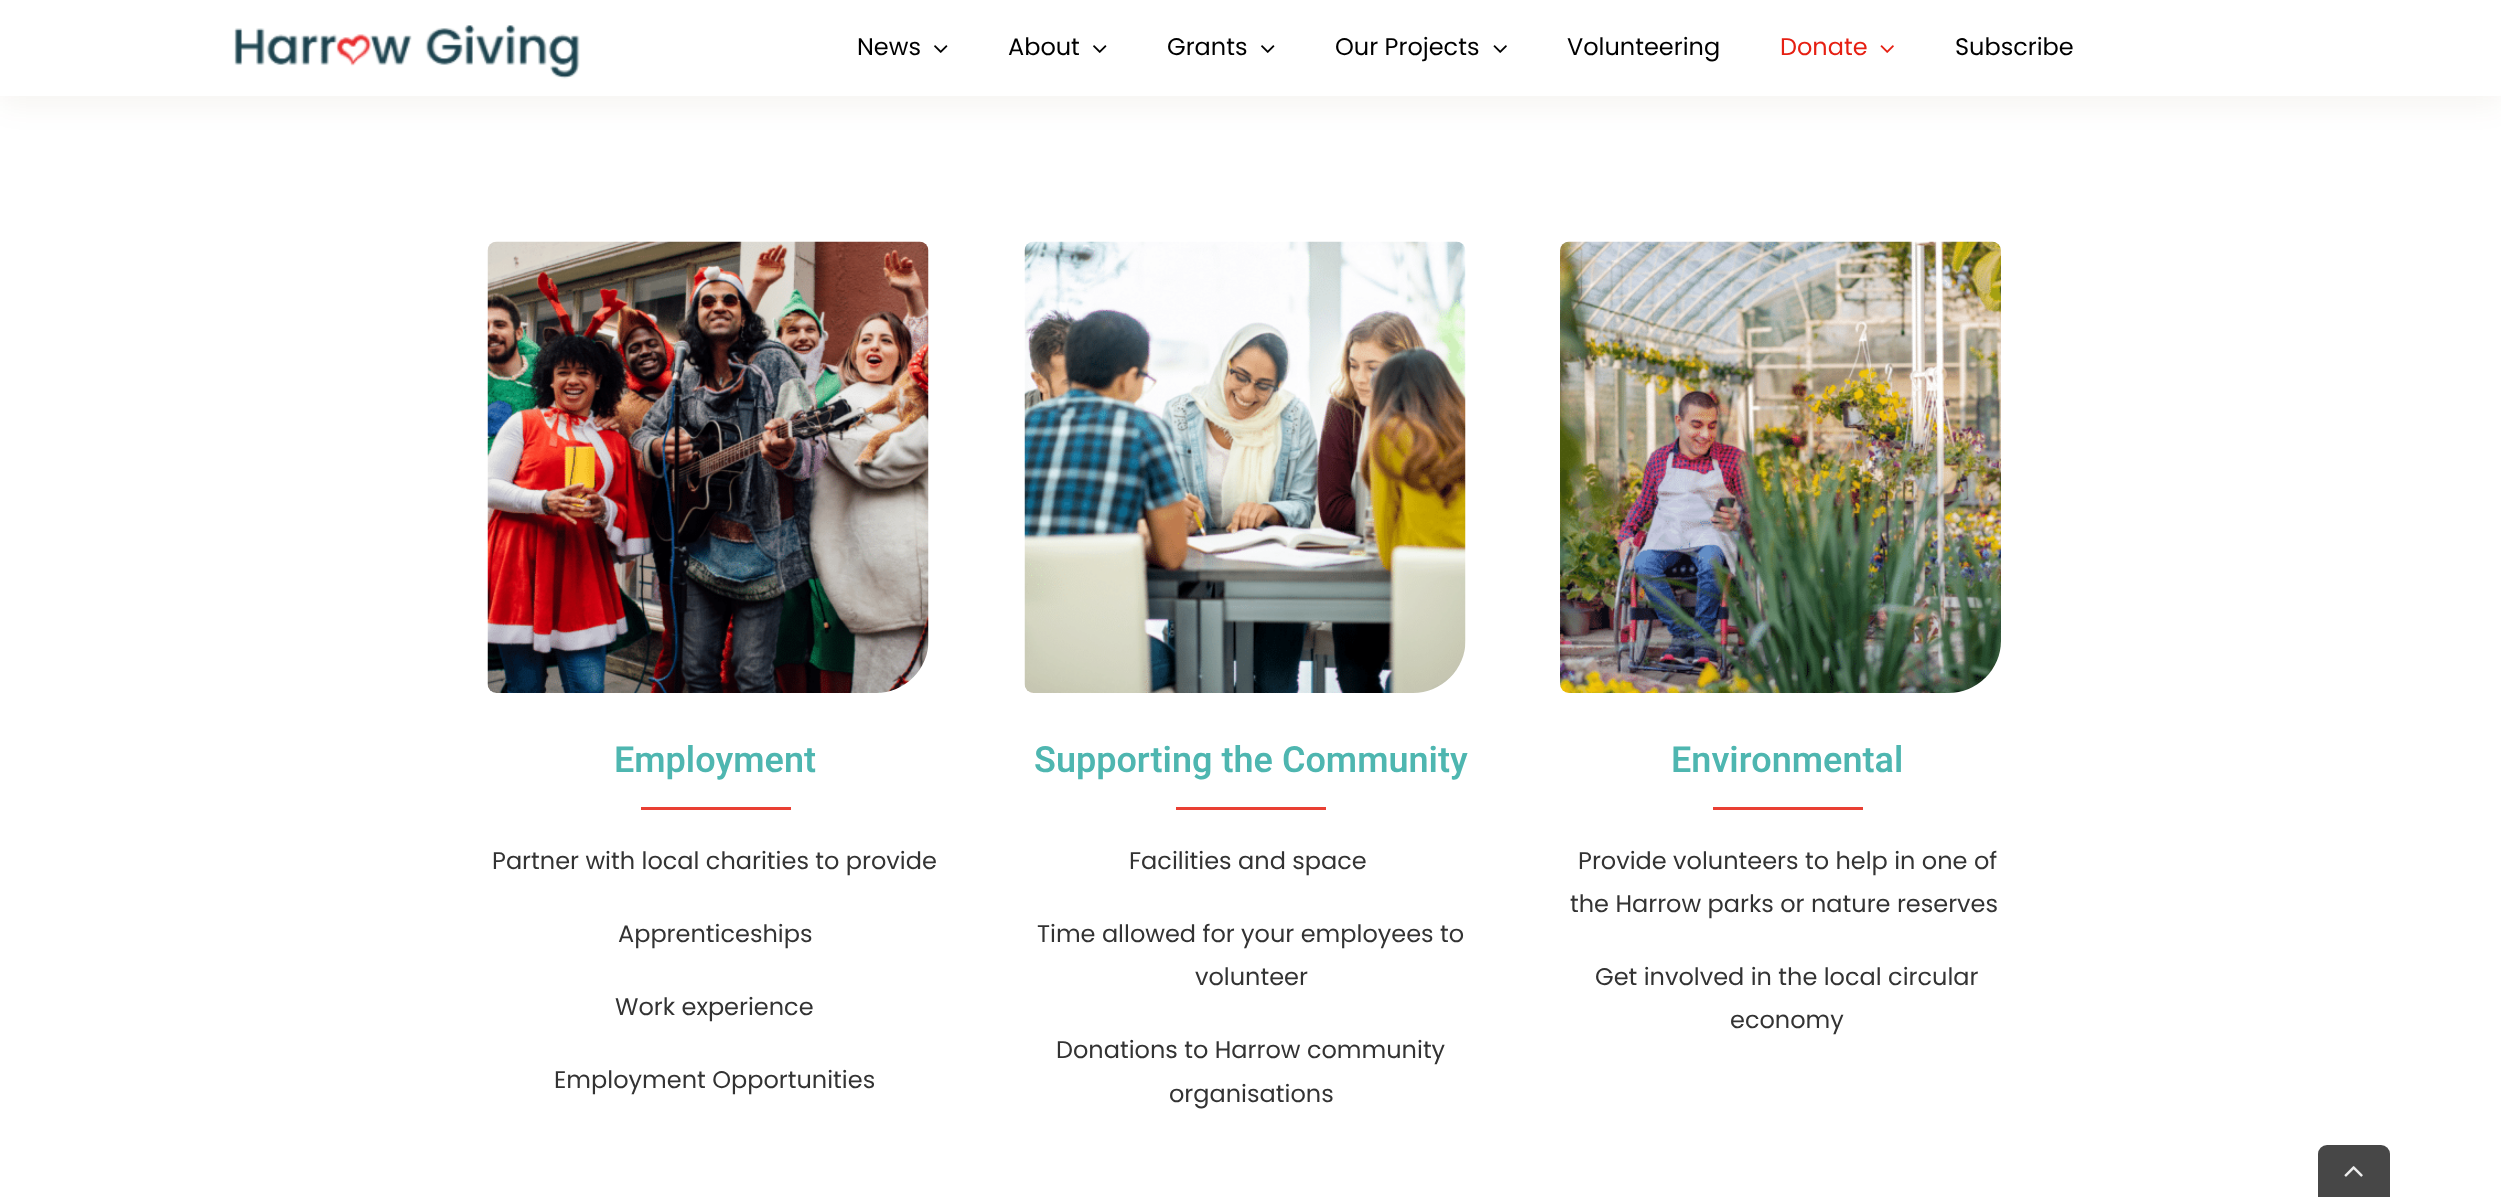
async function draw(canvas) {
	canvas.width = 2501;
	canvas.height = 1197;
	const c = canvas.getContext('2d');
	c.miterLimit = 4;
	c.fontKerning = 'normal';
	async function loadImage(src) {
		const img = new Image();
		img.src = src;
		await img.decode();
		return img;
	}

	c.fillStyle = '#fff';
	c.fillRect(0, 0, 2501, 1197);
	c.fillStyle = '#5b2d000f';
	c.filter = 'blur(15px)';
	c.beginPath();
	c.rect(0, 8, 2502, 96);
	c.fill();
	c.filter = 'none';
	c.fillStyle = '#fff';
	c.fillRect(0, 0, 2501, 96);
	c.drawImage(await loadImage('img1.png'), 234, 25, 346, 54);
	c.font = '24px Poppins';
	c.fillStyle = '#000';
	c.fillText('News', 857, 55);
	c.drawImage(await loadImage('img2.png'), 934, 45, 14, 8);
	c.fillText('About', 1008, 55);
	c.drawImage(await loadImage('img2.png'), 1093, 45, 14, 8);
	c.fillText('Grants', 1167, 55);
	c.drawImage(await loadImage('img2.png'), 1261, 45, 14, 8);
	c.fillText('Our Projects', 1335, 55);
	c.drawImage(await loadImage('img3.png'), 1493, 45, 14, 8);
	c.fillText('Volunteering', 1567, 55);
	c.fillStyle = '#e61f12';
	c.fillText('Donate', 1780, 55);
	c.drawImage(await loadImage('img4.png'), 1880, 45, 14, 8);
	c.fillStyle = '#000';
	c.fillText('Subscribe', 1955, 55);
	c.drawImage(await loadImage('img5.png'), 487, 241, 442, 452);
	c.font = '600 36px Heebo';
	c.fillStyle = '#4eb6b0';
	c.fillText('Employment', 614, 772);
	c.fillStyle = '#e93f33';
	c.fillRect(641, 807, 150, 3);
	c.font = '24px Poppins';
	c.fillStyle = '#333';
	for (const [text, x, y] of [
		['Partner with local charities to provide', 492, 869],
		['Apprenticeships', 618, 942],
		['Work experience', 615, 1015],
		['Employment Opportunities', 554, 1088],
	]) {
		c.fillText(text, x, y);
	}
	c.drawImage(await loadImage('img6.png'), 1024, 241, 442, 452);
	c.font = '600 36px Heebo';
	c.fillStyle = '#4eb6b0';
	c.fillText('Supporting the Community', 1034, 772);
	c.fillStyle = '#e93f33';
	c.fillRect(1176, 807, 150, 3);
	c.font = '24px Poppins';
	c.fillStyle = '#333';
	for (const [text, x, y] of [
		['Facilities and space', 1129, 869],
		['Time allowed for your employees to', 1037, 942],
		['volunteer', 1195, 985],
		['Donations to Harrow community', 1056, 1058],
		['organisations', 1169, 1102],
	]) {
		c.fillText(text, x, y);
	}
	c.drawImage(await loadImage('img7.png'), 1560, 241, 441, 452);
	c.font = '600 36px Heebo';
	c.fillStyle = '#4eb6b0';
	c.fillText('Environmental', 1671, 772);
	c.fillStyle = '#e93f33';
	c.fillRect(1713, 807, 150, 3);
	c.font = '24px Poppins';
	c.fillStyle = '#333';
	for (const [text, x, y] of [
		['Provide volunteers to help in one of', 1578, 869],
		['the Harrow parks or nature reserves', 1570, 912],
		['Get involved in the local circular', 1595, 985],
		['economy', 1730, 1028],
	]) {
		c.fillText(text, x, y);
	}
	c.fillStyle = '#474747';
	c.beginPath();
	c.roundRect(2318, 1145, 72, 52, [9, 9, 0, 0]);
	c.fill();
	c.drawImage(await loadImage('img8.png'), 2344, 1166, 19, 11);
}

draw(document.querySelector('canvas'));
